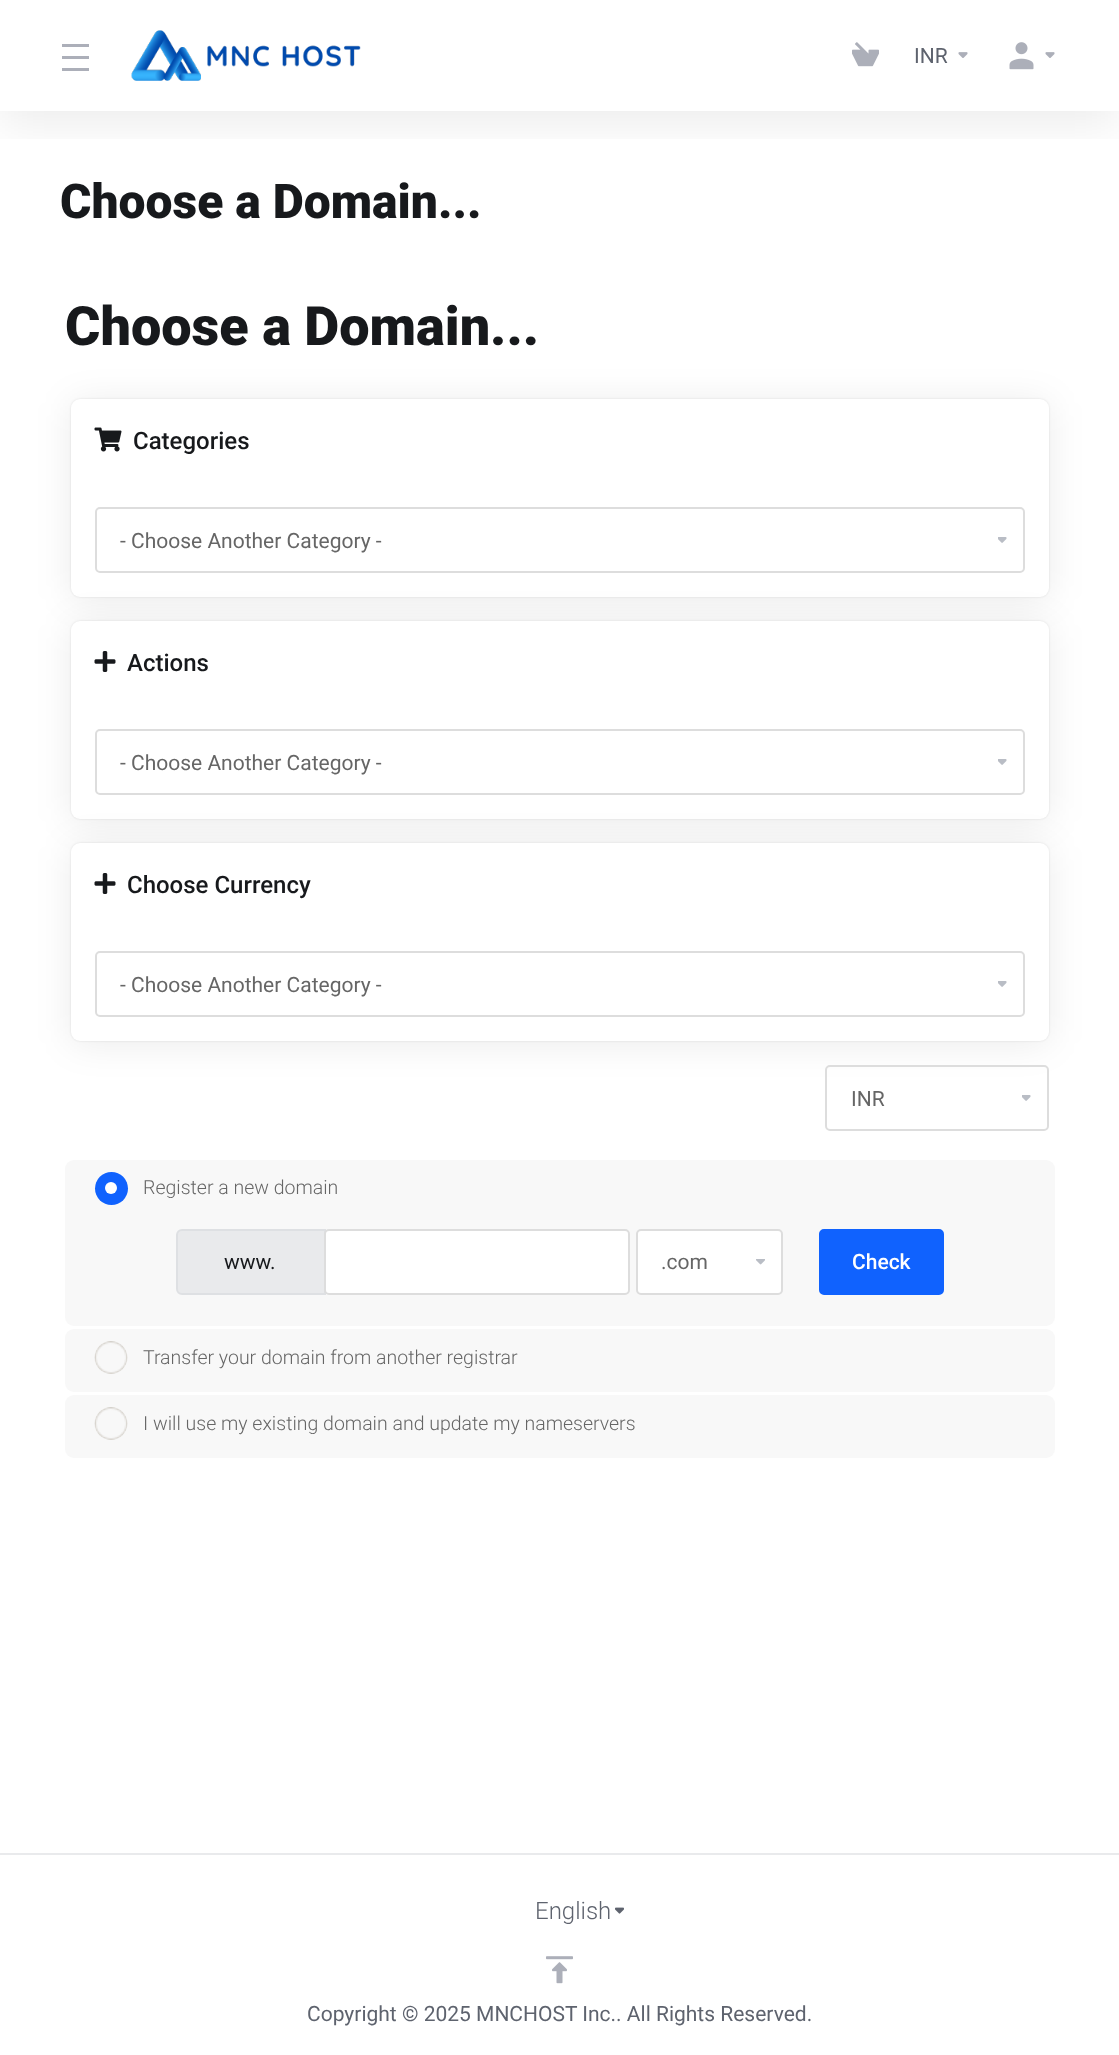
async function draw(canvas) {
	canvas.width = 1119;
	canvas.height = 2055;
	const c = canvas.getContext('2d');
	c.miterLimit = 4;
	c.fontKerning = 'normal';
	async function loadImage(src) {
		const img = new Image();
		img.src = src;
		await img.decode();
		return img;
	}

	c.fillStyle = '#fff';
	c.fillRect(0, 0, 1119, 2055);
	c.save();
	c.beginPath();
	c.rect(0, 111, 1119, 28);
	c.clip();
	c.fillStyle = '#00000014';
	c.filter = 'blur(24px)';
	c.beginPath();
	c.rect(0, 12, 1119, 111);
	c.fill();
	c.filter = 'none';
	c.restore();
	for (const [x, y, w, h, color] of [
		[62, 44, 27, 3, '#acafb9'],
		[62, 56, 27, 3, '#acafb9'],
		[62, 68, 27, 3, '#acafb9'],
	]) {
		c.fillStyle = color;
		c.fillRect(x, y, w, h);
	}
	c.drawImage(await loadImage('img1.png'), 131, 30, 230, 51);
	c.drawImage(await loadImage('img2.png'), 852, 42, 27, 25);
	c.font = '21px Roboto';
	c.fillStyle = '#5e636e';
	c.fillText('INR', 914, 63);
	c.drawImage(await loadImage('img3.png'), 958, 52, 10, 6);
	c.drawImage(await loadImage('img4.png'), 1009, 42, 25, 28);
	c.drawImage(await loadImage('img3.png'), 1045, 52, 10, 6);
	c.font = '900 48px Roboto';
	c.fillStyle = '#17191c';
	c.fillText('Choose a Domain...', 60, 218);
	c.font = '900 54px Roboto';
	c.fillText('Choose a Domain...', 65, 345);
	c.fillStyle = '#00000014';
	c.filter = 'blur(18px)';
	c.beginPath();
	c.roundRect(71, 402, 978, 198, 9);
	c.fill();
	c.filter = 'none';
	c.fillStyle = '#0000001a';
	c.filter = 'blur(1px)';
	c.beginPath();
	c.roundRect(71, 399, 978, 198, 9);
	c.fill();
	c.filter = 'none';
	c.fillStyle = '#fff';
	c.beginPath();
	c.roundRect(71, 399, 978, 198, 9);
	c.fill();
	c.drawImage(await loadImage('img5.png'), 94, 427, 28, 25);
	c.font = '500 24px Roboto';
	c.fillStyle = '#17191c';
	c.fillText('Categories', 133, 449);
	c.drawImage(await loadImage('img6.png'), 998, 537, 9, 6);
	c.beginPath();
	c.roundRect(96, 508, 928, 64, 4);
	c.strokeStyle = '#ddd';
	c.lineWidth = 2;
	c.stroke();
	c.font = '21px Roboto';
	c.fillStyle = '#666';
	c.fillText('- Choose Another Category -', 120, 548);
	c.fillStyle = '#00000014';
	c.filter = 'blur(18px)';
	c.beginPath();
	c.roundRect(71, 624, 978, 198, 9);
	c.fill();
	c.filter = 'none';
	c.fillStyle = '#0000001a';
	c.filter = 'blur(1px)';
	c.beginPath();
	c.roundRect(71, 621, 978, 198, 9);
	c.fill();
	c.filter = 'none';
	c.fillStyle = '#fff';
	c.beginPath();
	c.roundRect(71, 621, 978, 198, 9);
	c.fill();
	c.drawImage(await loadImage('img7.png'), 94, 651, 22, 21);
	c.font = '500 24px Roboto';
	c.fillStyle = '#17191c';
	c.fillText('Actions', 127, 671);
	c.drawImage(await loadImage('img6.png'), 998, 759, 9, 6);
	c.beginPath();
	c.roundRect(96, 730, 928, 64, 4);
	c.stroke();
	c.font = '21px Roboto';
	c.fillStyle = '#666';
	c.fillText('- Choose Another Category -', 120, 770);
	c.fillStyle = '#00000014';
	c.filter = 'blur(18px)';
	c.beginPath();
	c.roundRect(71, 846, 978, 198, 9);
	c.fill();
	c.filter = 'none';
	c.fillStyle = '#0000001a';
	c.filter = 'blur(1px)';
	c.beginPath();
	c.roundRect(71, 843, 978, 198, 9);
	c.fill();
	c.filter = 'none';
	c.fillStyle = '#fff';
	c.beginPath();
	c.roundRect(71, 843, 978, 198, 9);
	c.fill();
	c.drawImage(await loadImage('img7.png'), 94, 873, 22, 21);
	c.font = '500 24px Roboto';
	c.fillStyle = '#17191c';
	c.fillText('Choose Currency', 127, 893);
	c.drawImage(await loadImage('img6.png'), 998, 981, 9, 6);
	c.beginPath();
	c.roundRect(96, 952, 928, 64, 4);
	c.stroke();
	c.font = '21px Roboto';
	c.fillStyle = '#666';
	c.fillText('- Choose Another Category -', 120, 992);
	c.drawImage(await loadImage('img6.png'), 1022, 1095, 9, 6);
	c.beginPath();
	c.roundRect(826, 1066, 222, 64, 4);
	c.stroke();
	c.fillText('INR', 851, 1106);
	c.fillStyle = '#f8f8f8';
	c.beginPath();
	c.roundRect(65, 1160, 990, 166, 9);
	c.fill();
	c.fillStyle = '#1062fe';
	c.beginPath();
	c.arc(111.5, 1188.5, 16.5, 0, 2 * Math.PI);
	c.fill();
	c.fillStyle = '#fff';
	c.beginPath();
	c.arc(111, 1188, 6, 0, 2 * Math.PI);
	c.fill();
	c.font = '300 19.5px Roboto';
	c.fillStyle = '#666';
	c.fillText('Register a new domain', 143, 1194);
	c.fillStyle = '#e9eaec';
	c.beginPath();
	c.roundRect(177, 1230, 148, 64, [5, 0, 0, 5]);
	c.fill();
	c.strokeStyle = '#dee0e3';
	c.stroke();
	c.font = '21px Roboto';
	c.fillStyle = '#17191c';
	c.fillText('www.', 224, 1269);
	c.fillStyle = '#fff';
	c.beginPath();
	c.roundRect(325, 1230, 304, 64, 4);
	c.fill();
	c.strokeStyle = '#ddd';
	c.stroke();
	c.beginPath();
	c.roundRect(638, 1230, 144, 63, 3);
	c.fill();
	c.drawImage(await loadImage('img8.png'), 756, 1259, 9, 6);
	c.beginPath();
	c.roundRect(637, 1230, 145, 64, 4);
	c.stroke();
	c.fillStyle = '#666';
	c.fillText('.com', 661, 1269);
	c.fillStyle = '#1062fe';
	c.beginPath();
	c.roundRect(820, 1230, 123, 64, 4);
	c.fill();
	c.strokeStyle = '#1062fe';
	c.stroke();
	c.font = '500 21px Roboto';
	c.fillStyle = '#fff';
	c.fillText('Check', 852, 1269);
	c.fillStyle = '#f8f8f8';
	c.beginPath();
	c.roundRect(65, 1329, 990, 63, 9);
	c.fill();
	c.drawImage(await loadImage('img9.png'), 94, 1341, 34, 33);
	c.font = '300 19.5px Roboto';
	c.fillStyle = '#666';
	c.fillText('Transfer your domain from another registrar', 143, 1364);
	c.fillStyle = '#f8f8f8';
	c.beginPath();
	c.roundRect(65, 1395, 990, 63, 9);
	c.fill();
	c.drawImage(await loadImage('img9.png'), 94, 1407, 34, 33);
	c.fillStyle = '#666';
	c.fillText('I will use my existing domain and update my nameservers', 143, 1430);
	c.fillStyle = '#e9eaec';
	c.fillRect(0, 1853, 1119, 2);
	c.font = '300 24px Roboto';
	c.fillStyle = '#5e636e';
	c.fillText('English', 535, 1919);
	c.drawImage(await loadImage('img10.png'), 615, 1907, 9, 7);
	c.drawImage(await loadImage('img11.png'), 546, 1956, 27, 28);
	c.font = '21px Roboto';
	c.fillText('Copyright © 2025 MNCHOST Inc.. All Rights Reserved.', 307, 2021);
}

draw(document.querySelector('canvas'));
